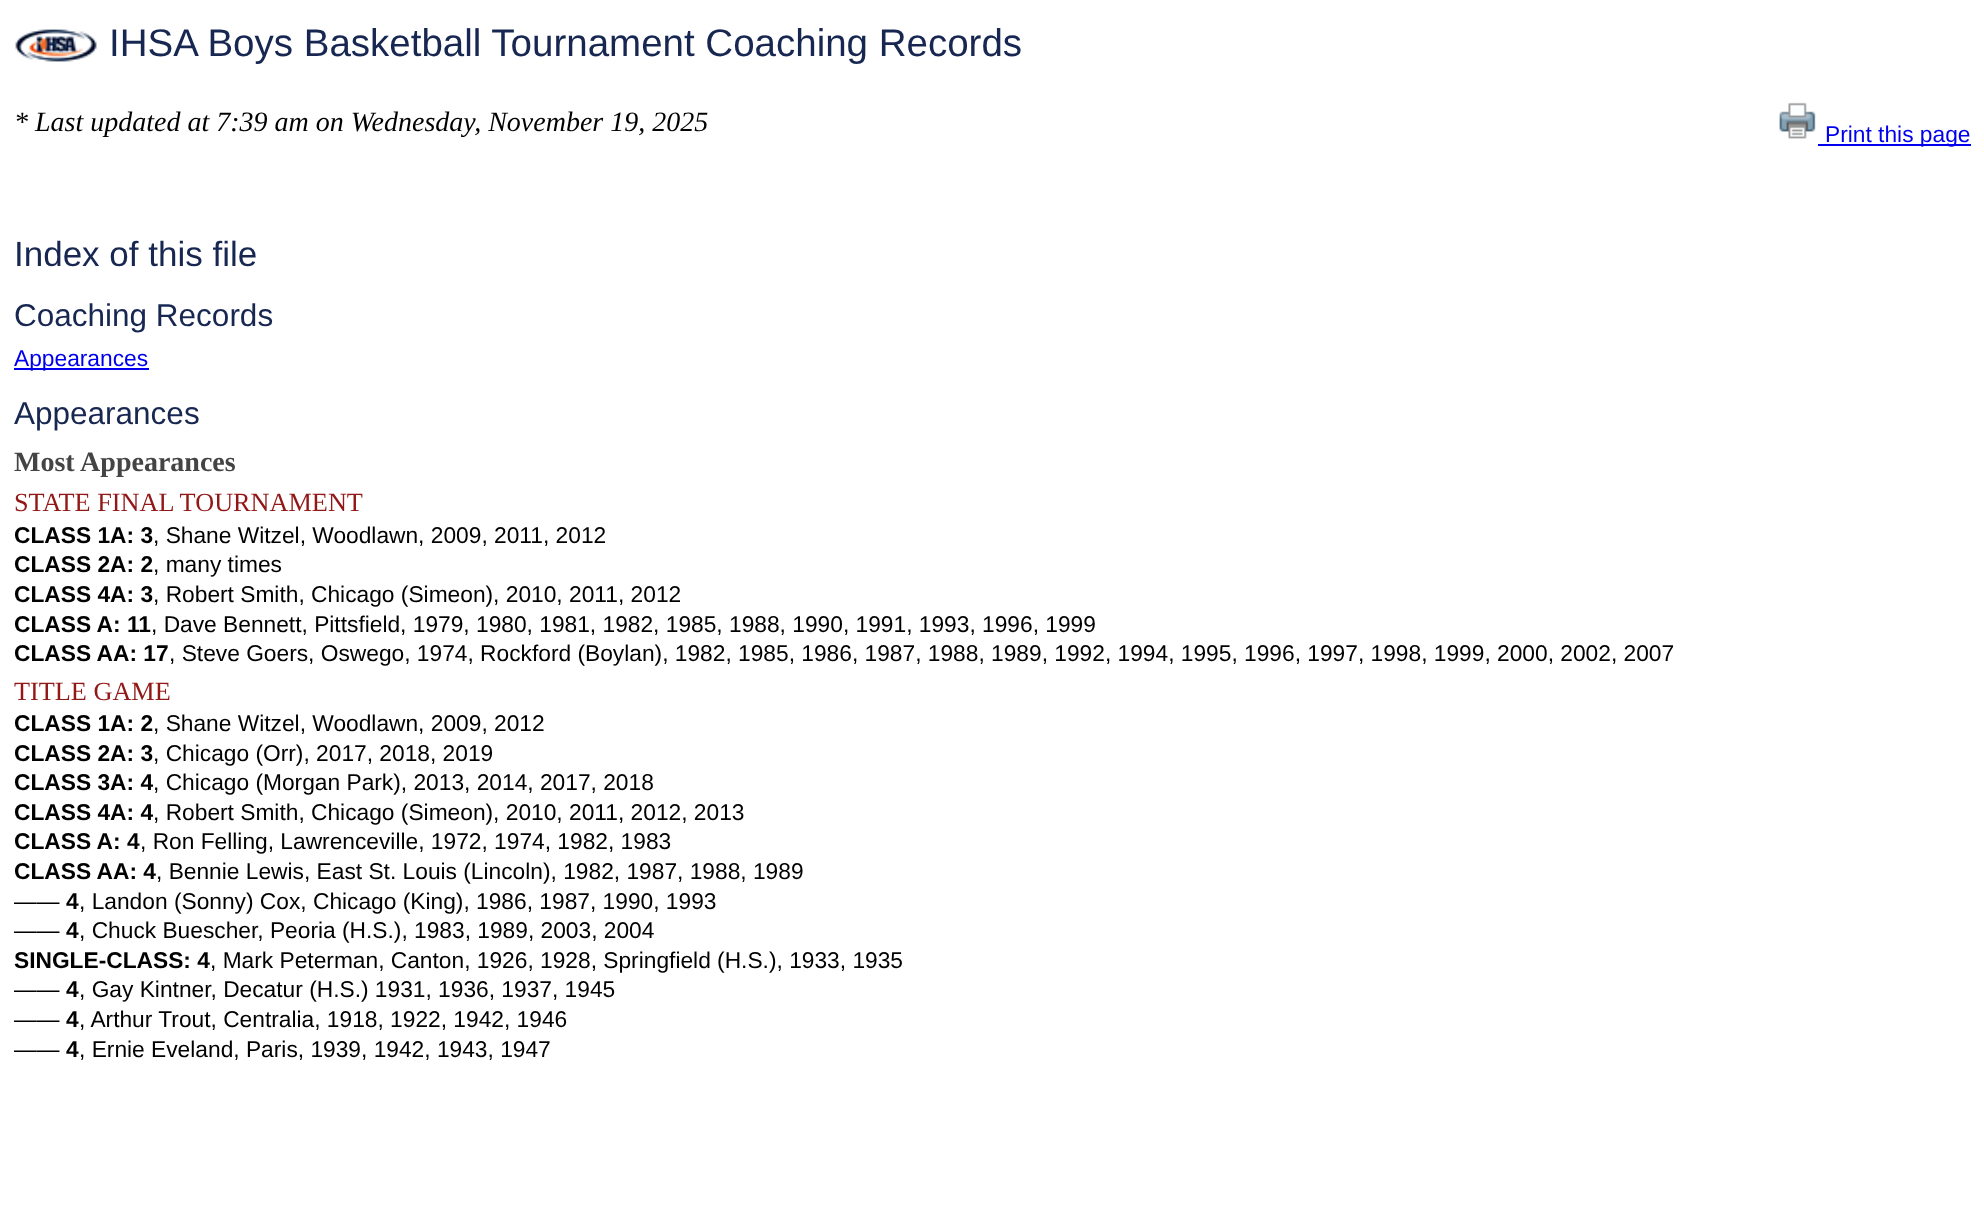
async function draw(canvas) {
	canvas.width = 1984;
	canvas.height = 1220;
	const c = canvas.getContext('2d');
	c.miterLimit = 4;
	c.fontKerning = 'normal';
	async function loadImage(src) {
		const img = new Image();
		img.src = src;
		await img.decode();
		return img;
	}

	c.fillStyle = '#fff';
	c.fillRect(0, 0, 1984, 1220);
	c.drawImage(await loadImage('img1.png'), 15, 29, 82, 33);
	c.font = '38.5px Liberation Sans';
	c.fillStyle = '#172751';
	c.fillText('IHSA Boys Basketball Tournament Coaching Records', 109, 56);
	c.font = 'italic 28px Liberation Serif';
	c.fillStyle = '#000';
	c.fillText('* Last updated at 7:39 am on Wednesday, November 19, 2025', 14, 131);
	c.drawImage(await loadImage('img2.png'), 1779, 102, 37, 37);
	c.fillStyle = '#00e';
	c.fillRect(1818, 144, 153, 2);
	c.font = '22.75px Liberation Sans';
	c.fillText('Print this page', 1825, 142);
	c.font = '35px Liberation Sans';
	c.fillStyle = '#172751';
	c.fillText('Index of this file', 14, 266);
	c.font = '31.5px Liberation Sans';
	c.fillText('Coaching Records', 14, 326);
	c.fillStyle = '#00e';
	c.fillRect(14, 368, 135, 2);
	c.font = '22.75px Liberation Sans';
	c.fillText('Appearances', 14, 366);
	c.font = '31.5px Liberation Sans';
	c.fillStyle = '#172751';
	c.fillText('Appearances', 14, 424);
	c.font = 'bold 28px Liberation Serif';
	c.fillStyle = '#444';
	c.fillText('Most Appearances', 14, 471);
	c.font = '26.25px Liberation Serif';
	c.fillStyle = '#921817';
	c.fillText('STATE FINAL TOURNAMENT', 14, 511);
	c.font = 'bold 22.75px Liberation Sans';
	c.fillStyle = '#000';
	c.fillText('CLASS 1A: 3', 14, 543);
	c.font = '22.75px Liberation Sans';
	c.fillText(', Shane Witzel, Woodlawn, 2009, 2011, 2012', 153, 543);
	c.font = 'bold 22.75px Liberation Sans';
	c.fillText('CLASS 2A: 2', 14, 572);
	c.font = '22.75px Liberation Sans';
	c.fillText(', many times', 153, 572);
	c.font = 'bold 22.75px Liberation Sans';
	c.fillText('CLASS 4A: 3', 14, 602);
	c.font = '22.75px Liberation Sans';
	c.fillText(', Robert Smith, Chicago (Simeon), 2010, 2011, 2012', 153, 602);
	c.font = 'bold 22.75px Liberation Sans';
	c.fillText('CLASS A: 11', 14, 632);
	c.font = '22.75px Liberation Sans';
	c.fillText(', Dave Bennett, Pittsfield, 1979, 1980, 1981, 1982, 1985, 1988, 1990, 1991, 1993, 1996, 1999', 151, 632);
	c.font = 'bold 22.75px Liberation Sans';
	c.fillText('CLASS AA: 17', 14, 661);
	c.font = '22.75px Liberation Sans';
	c.fillText(', Steve Goers, Oswego, 1974, Rockford (Boylan), 1982, 1985, 1986, 1987, 1988, 1989, 1992, 1994, 1995, 1996, 1997, 1998, 1999, 2000, 2002, 2007', 169, 661);
	c.font = '26.25px Liberation Serif';
	c.fillStyle = '#921817';
	c.fillText('TITLE GAME', 14, 700);
	c.font = 'bold 22.75px Liberation Sans';
	c.fillStyle = '#000';
	c.fillText('CLASS 1A: 2', 14, 731);
	c.font = '22.75px Liberation Sans';
	c.fillText(', Shane Witzel, Woodlawn, 2009, 2012', 153, 731);
	c.font = 'bold 22.75px Liberation Sans';
	c.fillText('CLASS 2A: 3', 14, 761);
	c.font = '22.75px Liberation Sans';
	c.fillText(', Chicago (Orr), 2017, 2018, 2019', 153, 761);
	c.font = 'bold 22.75px Liberation Sans';
	c.fillText('CLASS 3A: 4', 14, 790);
	c.font = '22.75px Liberation Sans';
	c.fillText(', Chicago (Morgan Park), 2013, 2014, 2017, 2018', 153, 790);
	c.font = 'bold 22.75px Liberation Sans';
	c.fillText('CLASS 4A: 4', 14, 820);
	c.font = '22.75px Liberation Sans';
	c.fillText(', Robert Smith, Chicago (Simeon), 2010, 2011, 2012, 2013', 153, 820);
	c.font = 'bold 22.75px Liberation Sans';
	c.fillText('CLASS A: 4', 14, 849);
	c.font = '22.75px Liberation Sans';
	c.fillText(', Ron Felling, Lawrenceville, 1972, 1974, 1982, 1983', 140, 849);
	c.font = 'bold 22.75px Liberation Sans';
	c.fillText('CLASS AA: 4', 14, 879);
	c.font = '22.75px Liberation Sans';
	c.fillText(', Bennie Lewis, East St. Louis (Lincoln), 1982, 1987, 1988, 1989', 156, 879);
	c.fillText('——', 14, 909);
	c.font = 'bold 22.75px Liberation Sans';
	c.fillText('4', 66, 909);
	c.font = '22.75px Liberation Sans';
	c.fillText(', Landon (Sonny) Cox, Chicago (King), 1986, 1987, 1990, 1993', 79, 909);
	c.fillText('——', 14, 938);
	c.font = 'bold 22.75px Liberation Sans';
	c.fillText('4', 66, 938);
	c.font = '22.75px Liberation Sans';
	c.fillText(', Chuck Buescher, Peoria (H.S.), 1983, 1989, 2003, 2004', 79, 938);
	c.font = 'bold 22.75px Liberation Sans';
	c.fillText('SINGLE-CLASS: 4', 14, 968);
	c.font = '22.75px Liberation Sans';
	c.fillText(', Mark Peterman, Canton, 1926, 1928, Springfield (H.S.), 1933, 1935', 210, 968);
	c.fillText('——', 14, 997);
	c.font = 'bold 22.75px Liberation Sans';
	c.fillText('4', 66, 997);
	c.font = '22.75px Liberation Sans';
	c.fillText(', Gay Kintner, Decatur (H.S.) 1931, 1936, 1937, 1945', 79, 997);
	c.fillText('——', 14, 1027);
	c.font = 'bold 22.75px Liberation Sans';
	c.fillText('4', 66, 1027);
	c.font = '22.75px Liberation Sans';
	c.fillText(', Arthur Trout, Centralia, 1918, 1922, 1942, 1946', 79, 1027);
	c.fillText('——', 14, 1057);
	c.font = 'bold 22.75px Liberation Sans';
	c.fillText('4', 66, 1057);
	c.font = '22.75px Liberation Sans';
	c.fillText(', Ernie Eveland, Paris, 1939, 1942, 1943, 1947', 79, 1057);
}

draw(document.querySelector('canvas'));
